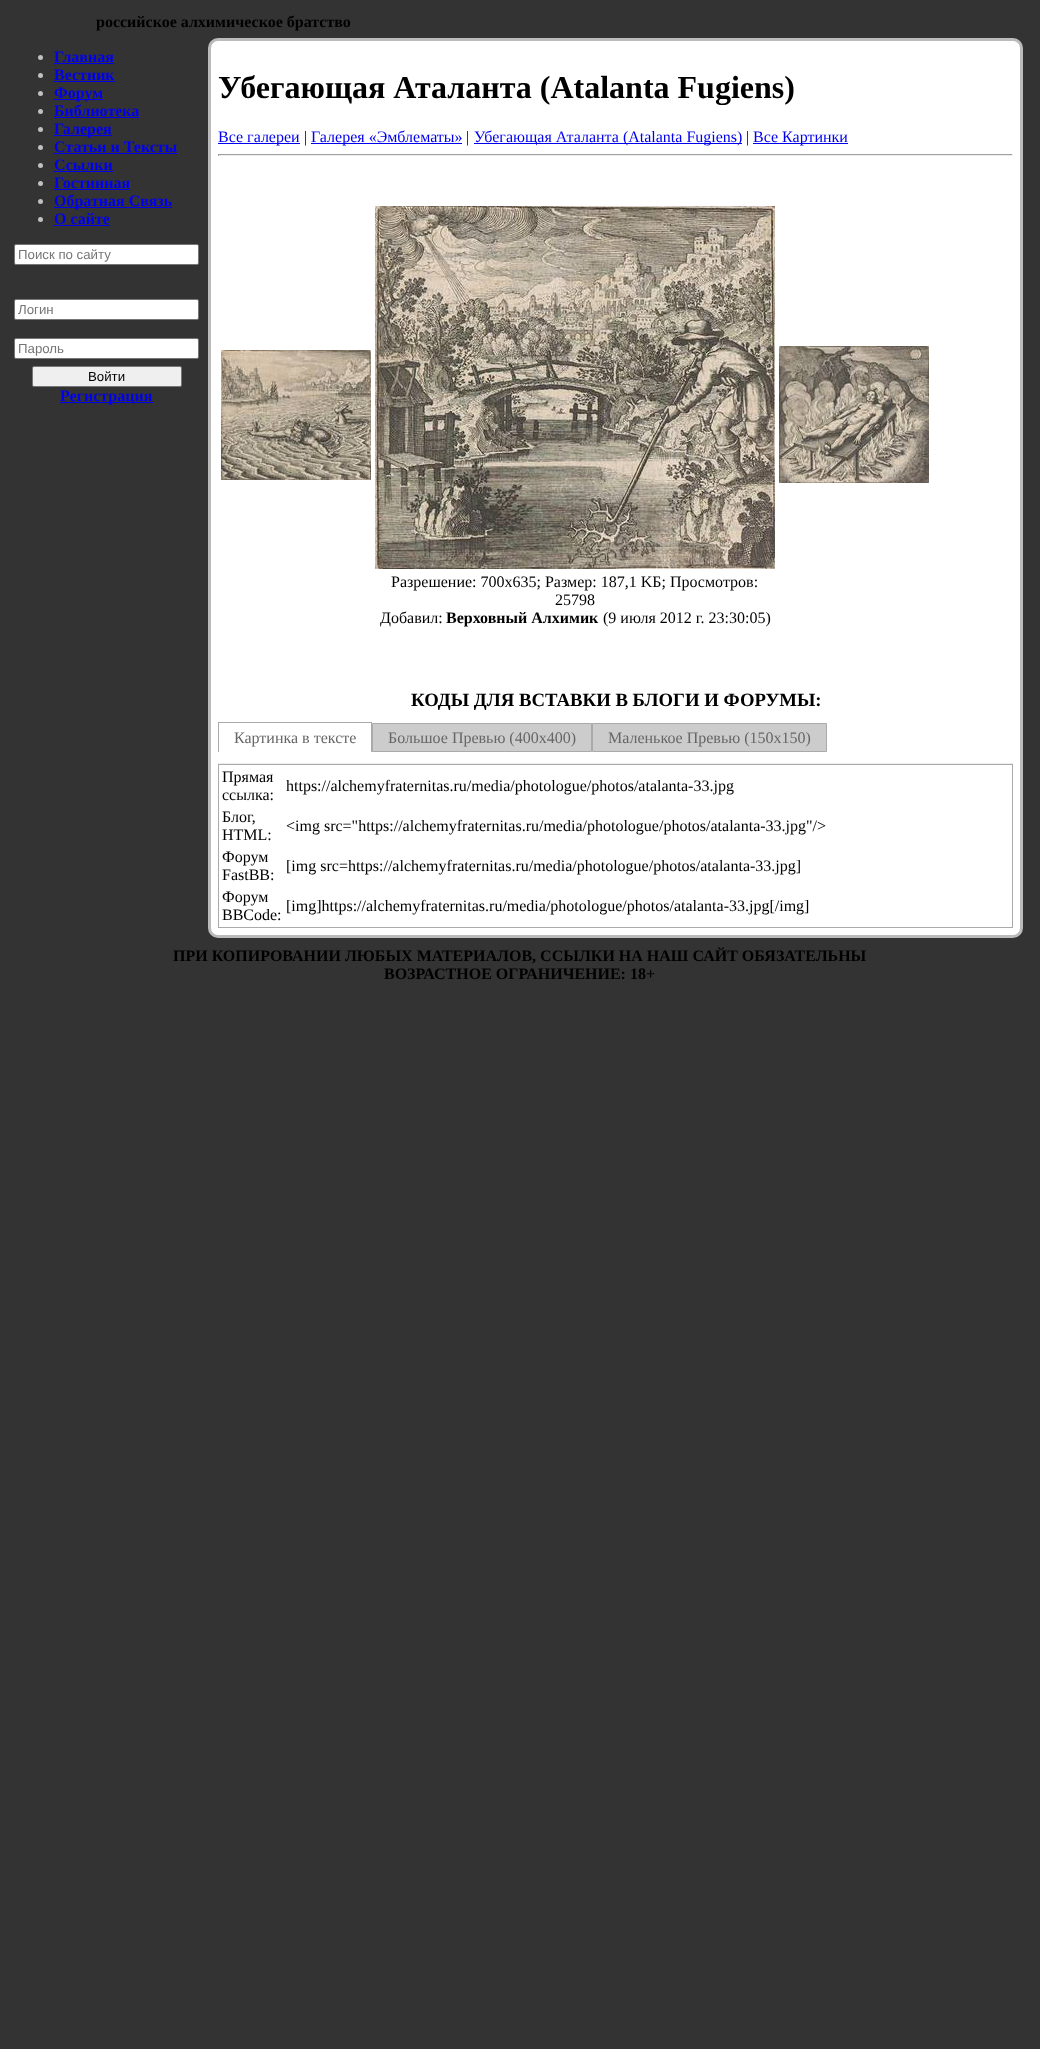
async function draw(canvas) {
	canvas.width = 1040;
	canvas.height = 2049;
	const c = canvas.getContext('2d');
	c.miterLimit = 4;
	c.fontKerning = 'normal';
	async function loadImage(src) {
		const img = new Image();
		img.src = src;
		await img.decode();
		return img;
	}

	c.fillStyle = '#333';
	c.fillRect(0, 0, 1040, 2049);
	c.font = 'bold 16px Liberation Serif';
	c.fillStyle = '#000';
	c.fillText('российское алхимическое братство', 96, 27);
	c.fillStyle = '#c0c0c0';
	c.beginPath();
	c.arc(40.5, 57.5, 2.5, 0, 2 * Math.PI);
	c.fill();
	c.fillStyle = '#00e';
	c.fillText('Главная', 54, 62);
	c.fillRect(54, 63, 60, 1);
	c.fillStyle = '#c0c0c0';
	c.beginPath();
	c.arc(40.5, 75.5, 2.5, 0, 2 * Math.PI);
	c.fill();
	c.fillStyle = '#00e';
	c.fillText('Вестник', 54, 80);
	c.fillRect(54, 81, 61, 1);
	c.fillStyle = '#c0c0c0';
	c.beginPath();
	c.arc(40.5, 93.5, 2.5, 0, 2 * Math.PI);
	c.fill();
	c.fillStyle = '#00e';
	c.fillRect(54, 99, 49, 1);
	c.fillText('Форум', 54, 98);
	c.fillStyle = '#c0c0c0';
	c.beginPath();
	c.arc(40.5, 111.5, 2.5, 0, 2 * Math.PI);
	c.fill();
	c.fillStyle = '#00e';
	c.fillText('Библиотека', 54, 116);
	c.fillRect(54, 117, 85, 1);
	c.fillStyle = '#c0c0c0';
	c.beginPath();
	c.arc(40.5, 129.5, 2.5, 0, 2 * Math.PI);
	c.fill();
	c.fillStyle = '#00e';
	c.fillRect(54, 135, 58, 1);
	c.fillText('Галерея', 54, 134);
	c.fillStyle = '#c0c0c0';
	c.beginPath();
	c.arc(40.5, 147.5, 2.5, 0, 2 * Math.PI);
	c.fill();
	c.fillStyle = '#00e';
	c.fillText('Статьи и Тексты', 54, 152);
	c.fillRect(54, 153, 123, 1);
	c.fillStyle = '#c0c0c0';
	c.beginPath();
	c.arc(40.5, 165.5, 2.5, 0, 2 * Math.PI);
	c.fill();
	c.fillStyle = '#00e';
	c.fillText('Ссылки', 54, 170);
	c.fillRect(54, 171, 59, 1);
	c.fillStyle = '#c0c0c0';
	c.beginPath();
	c.arc(40.5, 183.5, 2.5, 0, 2 * Math.PI);
	c.fill();
	c.fillStyle = '#00e';
	c.fillText('Гостинная', 54, 188);
	c.fillRect(54, 189, 76, 1);
	c.fillStyle = '#c0c0c0';
	c.beginPath();
	c.arc(40.5, 201.5, 2.5, 0, 2 * Math.PI);
	c.fill();
	c.fillStyle = '#00e';
	c.fillRect(54, 207, 118, 1);
	c.fillText('Обратная Связь', 54, 206);
	c.fillStyle = '#c0c0c0';
	c.beginPath();
	c.arc(40.5, 219.5, 2.5, 0, 2 * Math.PI);
	c.fill();
	c.fillStyle = '#00e';
	c.fillText('О сайте', 54, 224);
	c.fillRect(54, 225, 56, 1);
	c.fillStyle = '#fff';
	c.beginPath();
	c.roundRect(14.5, 244.5, 184, 20, 1.5);
	c.fill();
	c.strokeStyle = '#767676';
	c.stroke();
	c.font = '13.25px Liberation Sans';
	c.fillStyle = '#757575';
	c.fillText('Поиск по сайту', 18, 259);
	c.fillStyle = '#fff';
	c.beginPath();
	c.roundRect(14.5, 299.5, 184, 20, 1.5);
	c.fill();
	c.stroke();
	c.fillStyle = '#757575';
	c.fillText('Логин', 18, 314);
	c.fillStyle = '#fff';
	c.beginPath();
	c.roundRect(14.5, 338.5, 184, 20, 1.5);
	c.fill();
	c.stroke();
	c.fillStyle = '#757575';
	c.fillText('Пароль', 18, 353);
	c.fillStyle = '#efefef';
	c.beginPath();
	c.roundRect(32.5, 366.5, 149, 20, 1.5);
	c.fill();
	c.stroke();
	c.fillStyle = '#000';
	c.fillText('Войти', 88, 381);
	c.fillStyle = '#00e';
	c.fillRect(60, 402, 93, 1);
	c.font = 'bold 16px Liberation Serif';
	c.fillText('Регистрация', 60, 401);
	c.fillStyle = '#fff';
	c.beginPath();
	c.roundRect(209.5, 39.5, 812, 897, 8.5);
	c.fill();
	c.strokeStyle = '#bbb';
	c.lineWidth = 3;
	c.stroke();
	c.font = 'bold 32px Liberation Serif';
	c.fillStyle = '#000';
	c.fillText('Убегающая Аталанта (Atalanta Fugiens)', 218, 98);
	c.fillStyle = '#00e';
	c.fillRect(218, 143, 82, 1);
	c.font = '16px Liberation Serif';
	c.fillText('Все галереи', 218, 142);
	c.fillStyle = '#000';
	c.fillText('|', 304, 142);
	c.fillStyle = '#00e';
	c.fillRect(311, 143, 151, 1);
	c.fillText('Галерея «Эмблематы»', 311, 142);
	c.fillStyle = '#000';
	c.fillText('|', 466, 142);
	c.fillStyle = '#00e';
	c.fillRect(474, 143, 268, 1);
	c.fillText('Убегающая Аталанта (Atalanta Fugiens)', 474, 142);
	c.fillStyle = '#000';
	c.fillText('|', 746, 142);
	c.fillStyle = '#00e';
	c.fillRect(753, 143, 95, 1);
	c.fillText('Все Картинки', 753, 142);
	for (const [x, y, w, h, color] of [
		[218, 154, 795, 1, '#9f9f9f'],
		[1012, 154, 1, 2, '#eee'],
		[218, 155, 795, 1, '#eee'],
		[218, 154, 1, 2, '#9f9f9f'],
	]) {
		c.fillStyle = color;
		c.fillRect(x, y, w, h);
	}
	c.drawImage(await loadImage('img1.png'), 221, 350, 150, 130);
	c.drawImage(await loadImage('img2.png'), 779, 346, 150, 137);
	c.drawImage(await loadImage('img3.png'), 375, 206, 400, 363);
	c.fillStyle = '#000';
	for (const [text, x, y] of [
		['Разрешение: 700x635; Размер: 187,1 KБ; Просмотров:', 391, 587],
		['25798', 555, 605],
		['Добавил:', 380, 623],
	]) {
		c.fillText(text, x, y);
	}
	c.font = 'bold 16px Liberation Serif';
	c.fillText('Верховный Алхимик', 446, 623);
	c.font = '16px Liberation Serif';
	c.fillText('(9 июля 2012 г. 23:30:05)', 603, 623);
	c.font = 'bold 18.75px Liberation Serif';
	c.fillText('КОДЫ ДЛЯ ВСТАВКИ В БЛОГИ И ФОРУМЫ:', 411, 706);
	c.fillStyle = '#eee';
	c.fillRect(218, 763, 795, 1);
	c.font = '16px Liberation Serif';
	c.fillStyle = '#666';
	c.fillText('Картинка в тексте', 234, 743);
	for (const [x, y, w, h, color] of [
		[218, 722, 154, 1, '#aaa'],
		[371, 722, 1, 30, '#aaa'],
		[218, 722, 1, 30, '#aaa'],
	]) {
		c.fillStyle = color;
		c.fillRect(x, y, w, h);
	}
	c.fillStyle = '#ccc';
	c.beginPath();
	c.rect(372.5, 723.5, 219, 28);
	c.fill();
	c.strokeStyle = '#aaa';
	c.lineWidth = 1;
	c.stroke();
	c.fillStyle = '#666';
	c.fillText('Большое Превью (400x400)', 388, 743);
	c.fillStyle = '#ccc';
	c.beginPath();
	c.rect(592.5, 723.5, 234, 28);
	c.fill();
	c.stroke();
	c.fillStyle = '#666';
	c.fillText('Маленькое Превью (150x150)', 608, 743);
	c.strokeRect(218.5, 764.5, 794, 163);
	c.fillStyle = '#000';
	for (const [text, x, y] of [
		['Прямая', 222, 782],
		['ссылка:', 222, 800],
		['https://alchemyfraternitas.ru/media/photologue/photos/atalanta-33.jpg', 286, 791],
		['Блог,', 222, 822],
		['HTML:', 222, 840],
		['<img src="https://alchemyfraternitas.ru/media/photologue/photos/atalanta-33.jpg"/>', 286, 831],
		['Форум', 222, 862],
		['FastBB:', 222, 880],
		['[img src=https://alchemyfraternitas.ru/media/photologue/photos/atalanta-33.jpg]', 286, 871],
		['Форум', 222, 902],
		['BBCode:', 222, 920],
		['[img]https://alchemyfraternitas.ru/media/photologue/photos/atalanta-33.jpg[/img]', 286, 911],
	]) {
		c.fillText(text, x, y);
	}
	c.font = 'bold 16px Liberation Serif';
	c.fillText('ПРИ КОПИРОВАНИИ ЛЮБЫХ МАТЕРИАЛОВ, ССЫЛКИ НА НАШ САЙТ ОБЯЗАТЕЛЬНЫ', 173, 961);
	c.fillText('ВОЗРАСТНОЕ ОГРАНИЧЕНИЕ: 18+', 384, 979);
}

draw(document.querySelector('canvas'));
